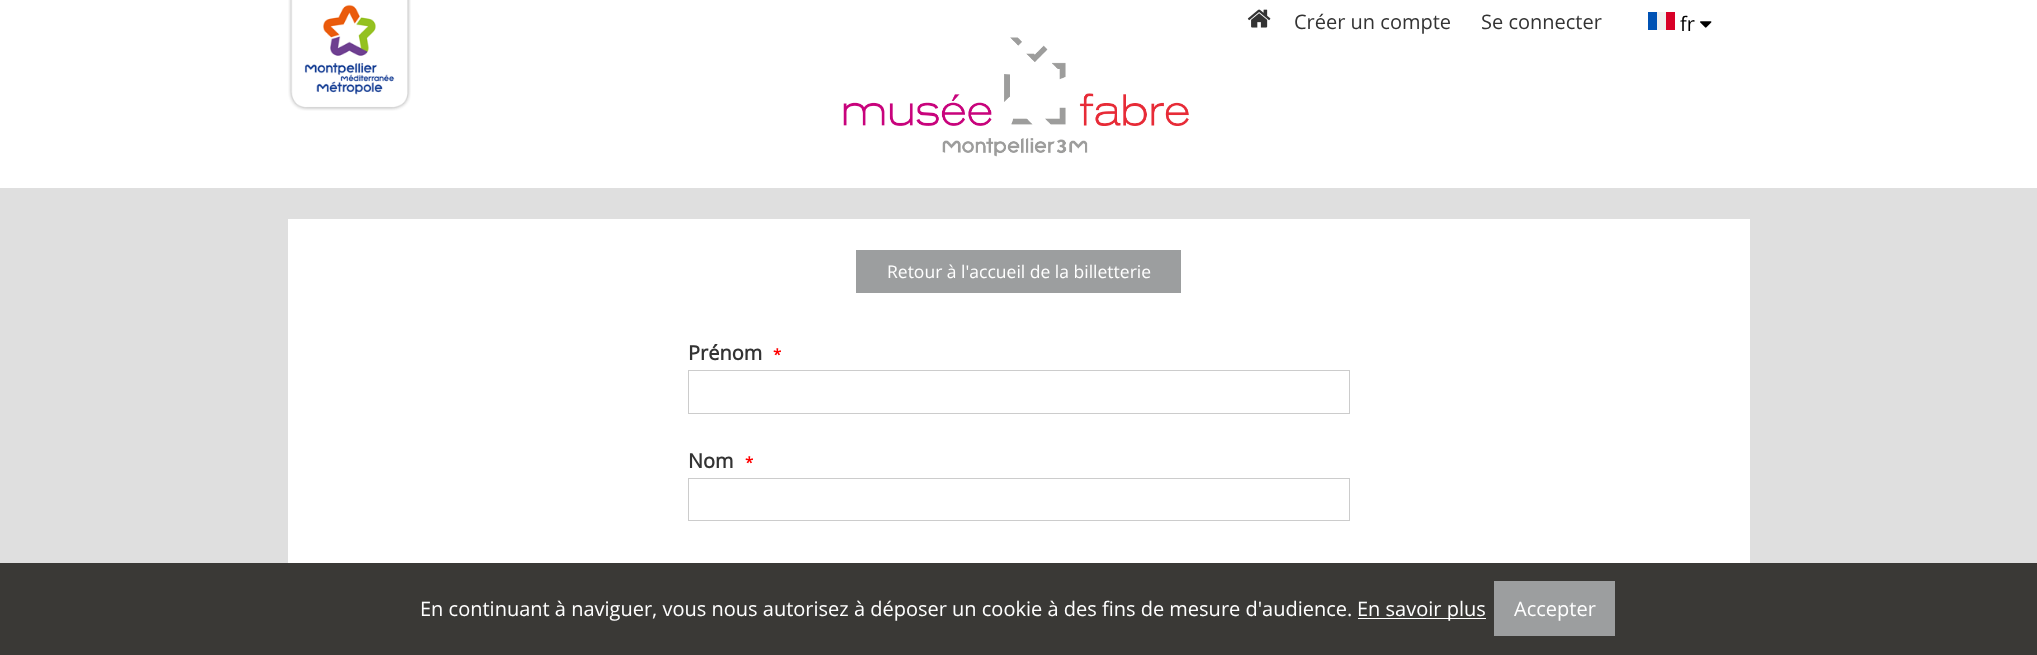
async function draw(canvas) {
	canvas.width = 2037;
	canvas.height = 655;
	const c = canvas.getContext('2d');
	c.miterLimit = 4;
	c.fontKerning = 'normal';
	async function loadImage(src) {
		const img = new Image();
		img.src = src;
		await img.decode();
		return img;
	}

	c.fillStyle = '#dfdfdf';
	c.fillRect(0, 0, 2037, 655);
	c.fillStyle = '#fff';
	c.fillRect(0, 0, 2037, 188);
	c.drawImage(await loadImage('img1.png'), 288, 0, 123, 111);
	c.drawImage(await loadImage('img2.png'), 1247, 9, 24, 19);
	c.font = '20px Open Sans';
	c.fillStyle = '#333';
	c.fillText('Créer un compte', 1294, 29);
	c.fillText('Se connecter', 1481, 29);
	for (const [x, y, w, h, color] of [
		[1648, 12, 9, 18, '#0052b4'],
		[1657, 12, 9, 18, '#f0f0f0'],
		[1666, 12, 9, 18, '#d80027'],
	]) {
		c.fillStyle = color;
		c.fillRect(x, y, w, h);
	}
	c.fillStyle = '#000';
	c.fillText('fr', 1680, 31);
	c.drawImage(await loadImage('img3.png'), 1700, 21, 12, 7);
	c.drawImage(await loadImage('img4.png'), 843, 37, 346, 120);
	c.fillStyle = '#fff';
	c.fillRect(288, 219, 1462, 344);
	c.fillStyle = '#9c9e9f';
	c.fillRect(856, 250, 325, 43);
	c.font = '17.5px Open Sans';
	c.fillStyle = '#fff';
	c.fillText('Retour à l\'accueil de la billetterie', 887, 278);
	c.font = 'bold 20px Open Sans';
	c.fillStyle = '#333';
	c.fillText('Prénom', 688, 360);
	c.font = 'bold 15px Open Sans';
	c.fillStyle = '#f00';
	c.fillText('*', 773, 360);
	c.strokeStyle = '#ccc';
	c.strokeRect(688.5, 370.5, 661, 43);
	c.font = 'bold 20px Open Sans';
	c.fillStyle = '#333';
	c.fillText('Nom', 688, 468);
	c.font = 'bold 15px Open Sans';
	c.fillStyle = '#f00';
	c.fillText('*', 745, 468);
	c.strokeRect(688.5, 478.5, 661, 42);
	c.fillStyle = '#3a3936';
	c.fillRect(0, 563, 2037, 92);
	c.font = '20px Open Sans';
	c.fillStyle = '#fff';
	c.fillText('En continuant à naviguer, vous nous autorisez à déposer un cookie à des fins de mesure d\'audience.', 420, 616);
	c.fillRect(1358, 618, 128, 1);
	c.fillText('En savoir plus', 1357, 616);
	c.fillStyle = '#9c9e9f';
	c.fillRect(1494, 581, 121, 55);
	c.fillStyle = '#fff';
	c.fillText('Accepter', 1514, 616);
}

draw(document.querySelector('canvas'));
